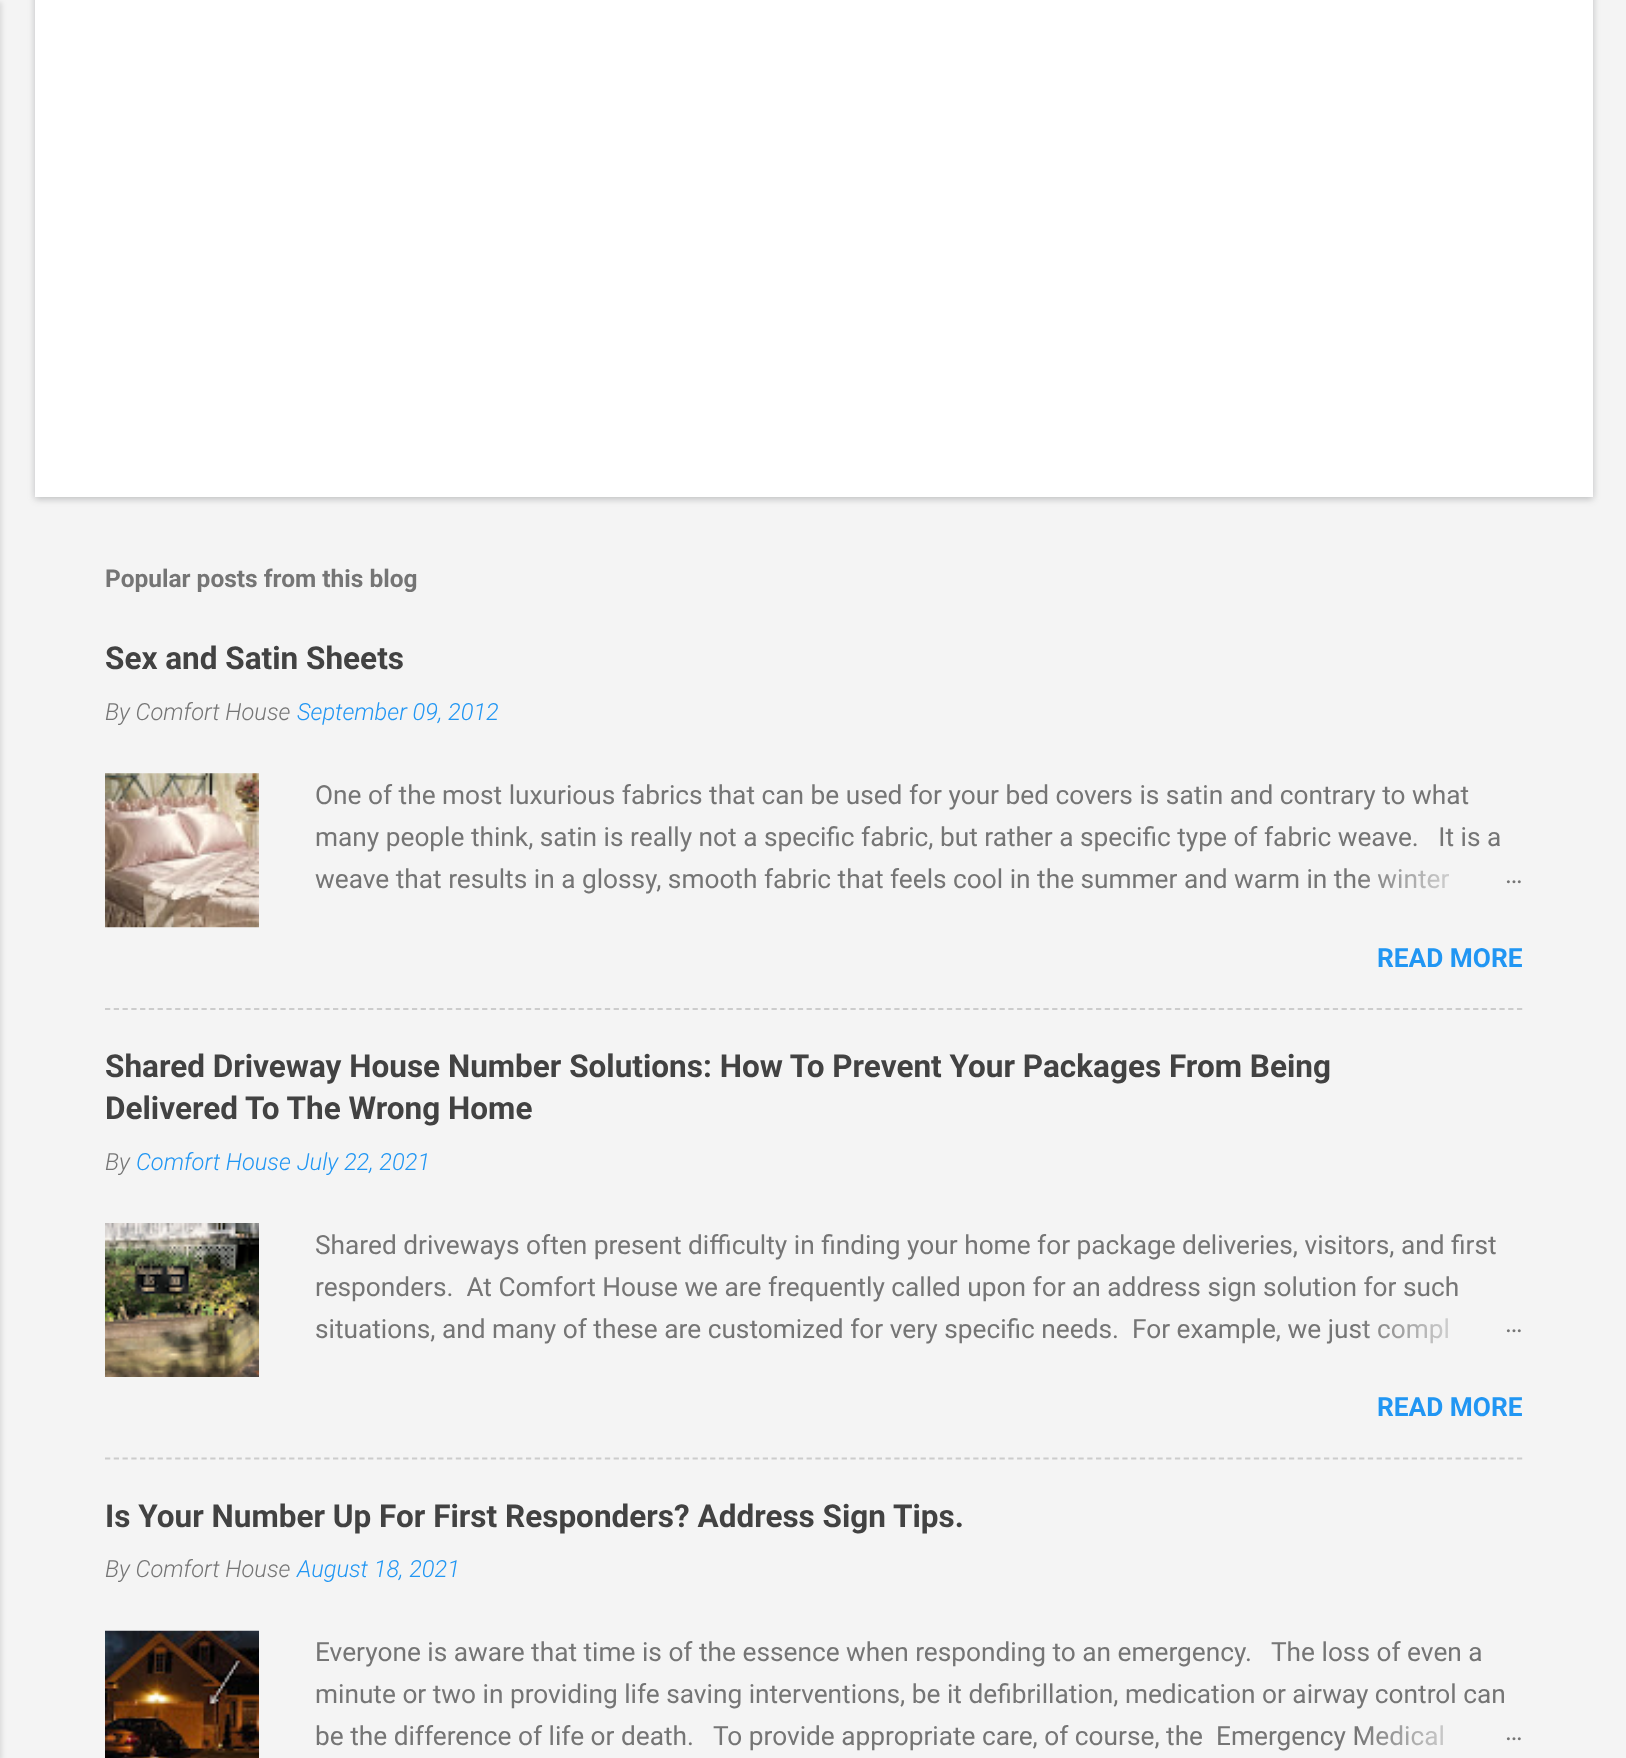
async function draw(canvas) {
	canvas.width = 1626;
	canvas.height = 1758;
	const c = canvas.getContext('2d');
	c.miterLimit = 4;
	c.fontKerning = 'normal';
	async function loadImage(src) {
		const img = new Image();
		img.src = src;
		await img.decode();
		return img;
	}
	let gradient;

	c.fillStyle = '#f4f4f4';
	c.fillRect(0, 0, 1626, 1758);
	c.fillStyle = '#0000001a';
	c.filter = 'blur(2.5px)';
	c.beginPath();
	c.rect(-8, 2, 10, 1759);
	c.fill();
	c.filter = 'none';
	c.fillStyle = '#3c40434d';
	c.filter = 'blur(3.5px)';
	c.beginPath();
	c.rect(35, -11, 1558, 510);
	c.fill();
	c.filter = 'none';
	c.fillStyle = '#fff';
	c.fillRect(35, 0, 1558, 497);
	c.font = 'bold 24.5px Roboto';
	c.fillStyle = '#757575';
	c.fillText('Popular posts from this blog', 105, 587);
	c.font = 'bold 31.5px Roboto';
	c.fillStyle = '#424242';
	c.fillText('Sex and Satin Sheets', 105, 669);
	c.font = 'italic 300 23.6px Roboto';
	c.fillStyle = '#757575';
	c.fillText('By Comfort House', 105, 720);
	c.fillStyle = '#2196f3';
	c.fillText('September 09, 2012', 297, 720);
	c.drawImage(await loadImage('img1.png'), 105, 773, 154, 155);
	c.font = '26.25px Roboto';
	c.fillStyle = '#757575';
	for (const [text, x, y] of [
		['One of the most luxurious fabrics that can be used for your bed covers is satin and contrary to what', 315, 804],
		['many people think, satin is really not a specific fabric, but rather a specific type of fabric weave.   It is a', 315, 846],
		['weave that results in a glossy, smooth fabric that feels cool in the summer and warm in the winter', 315, 888],
	]) {
		c.fillText(text, x, y);
	}
	gradient = c.createLinearGradient(1523, 879, 1355, 879);
	gradient.addColorStop(0, '#f4f4f4');
	gradient.addColorStop(0.2, '#f4f4f4');
	gradient.addColorStop(1, '#f4f4f400');
	c.fillStyle = gradient;
	c.fillRect(1359, 869, 90, 20);
	c.fillStyle = '#757575';
	c.fillText('…', 1505, 883);
	c.font = 'bold 26.25px Roboto';
	c.fillStyle = '#2196f3';
	c.fillText('READ MORE', 1377, 967);
	c.beginPath();
	c.moveTo(105, 1009);
	c.lineTo(1522.5, 1009);
	c.strokeStyle = '#ccc';
	c.lineWidth = 1.8;
	c.setLineDash([5.25, 3.52]);
	c.stroke();
	c.font = 'bold 31.5px Roboto';
	c.fillStyle = '#424242';
	c.fillText('Shared Driveway House Number Solutions: How To Prevent Your Packages From Being', 105, 1077);
	c.fillText('Delivered To The Wrong Home', 105, 1119);
	c.font = 'italic 300 23.6px Roboto';
	c.fillStyle = '#757575';
	c.fillText('By', 105, 1170);
	c.fillStyle = '#2196f3';
	c.fillText('Comfort House', 136, 1170);
	c.fillText('July 22, 2021', 297, 1170);
	c.drawImage(await loadImage('img2.png'), 105, 1223, 154, 154);
	c.font = '26.25px Roboto';
	c.fillStyle = '#757575';
	for (const [text, x, y] of [
		['Shared driveways often present difficulty in finding your home for package deliveries, visitors, and first', 315, 1254],
		['responders.  At Comfort House we are frequently called upon for an address sign solution for such', 315, 1296],
		['situations, and many of these are customized for very specific needs.  For example, we just compl', 315, 1338],
	]) {
		c.fillText(text, x, y);
	}
	gradient = c.createLinearGradient(1523, 1328, 1355, 1328);
	gradient.addColorStop(0, '#f4f4f4');
	gradient.addColorStop(0.2, '#f4f4f4');
	gradient.addColorStop(1, '#f4f4f400');
	c.fillStyle = gradient;
	c.fillRect(1358, 1318, 90, 26);
	c.fillStyle = '#757575';
	c.fillText('…', 1505, 1332);
	c.font = 'bold 26.25px Roboto';
	c.fillStyle = '#2196f3';
	c.fillText('READ MORE', 1377, 1416);
	c.beginPath();
	c.moveTo(105, 1458.5);
	c.lineTo(1522.5, 1458.5);
	c.stroke();
	c.font = 'bold 31.5px Roboto';
	c.fillStyle = '#424242';
	c.fillText('Is Your Number Up For First Responders? Address Sign Tips.', 105, 1527);
	c.font = 'italic 300 23.6px Roboto';
	c.fillStyle = '#757575';
	c.fillText('By Comfort House', 105, 1577);
	c.fillStyle = '#2196f3';
	c.fillText('August 18, 2021', 297, 1577);
	c.drawImage(await loadImage('img3.png'), 105, 1630, 154, 128);
	c.font = '26.25px Roboto';
	c.fillStyle = '#757575';
	for (const [text, x, y] of [
		['Everyone is aware that time is of the essence when responding to an emergency.   The loss of even a', 315, 1661],
		['minute or two in providing life saving interventions, be it defibrillation, medication or airway control can', 315, 1703],
		['be the difference of life or death.   To provide appropriate care, of course, the  Emergency Medical', 315, 1745],
	]) {
		c.fillText(text, x, y);
	}
	gradient = c.createLinearGradient(1523, 1736, 1355, 1736);
	gradient.addColorStop(0, '#f4f4f4');
	gradient.addColorStop(0.2, '#f4f4f4');
	gradient.addColorStop(1, '#f4f4f400');
	c.fillStyle = gradient;
	c.fillRect(1358, 1725, 85, 21);
	c.fillStyle = '#757575';
	c.fillText('…', 1505, 1740);
}

draw(document.querySelector('canvas'));
